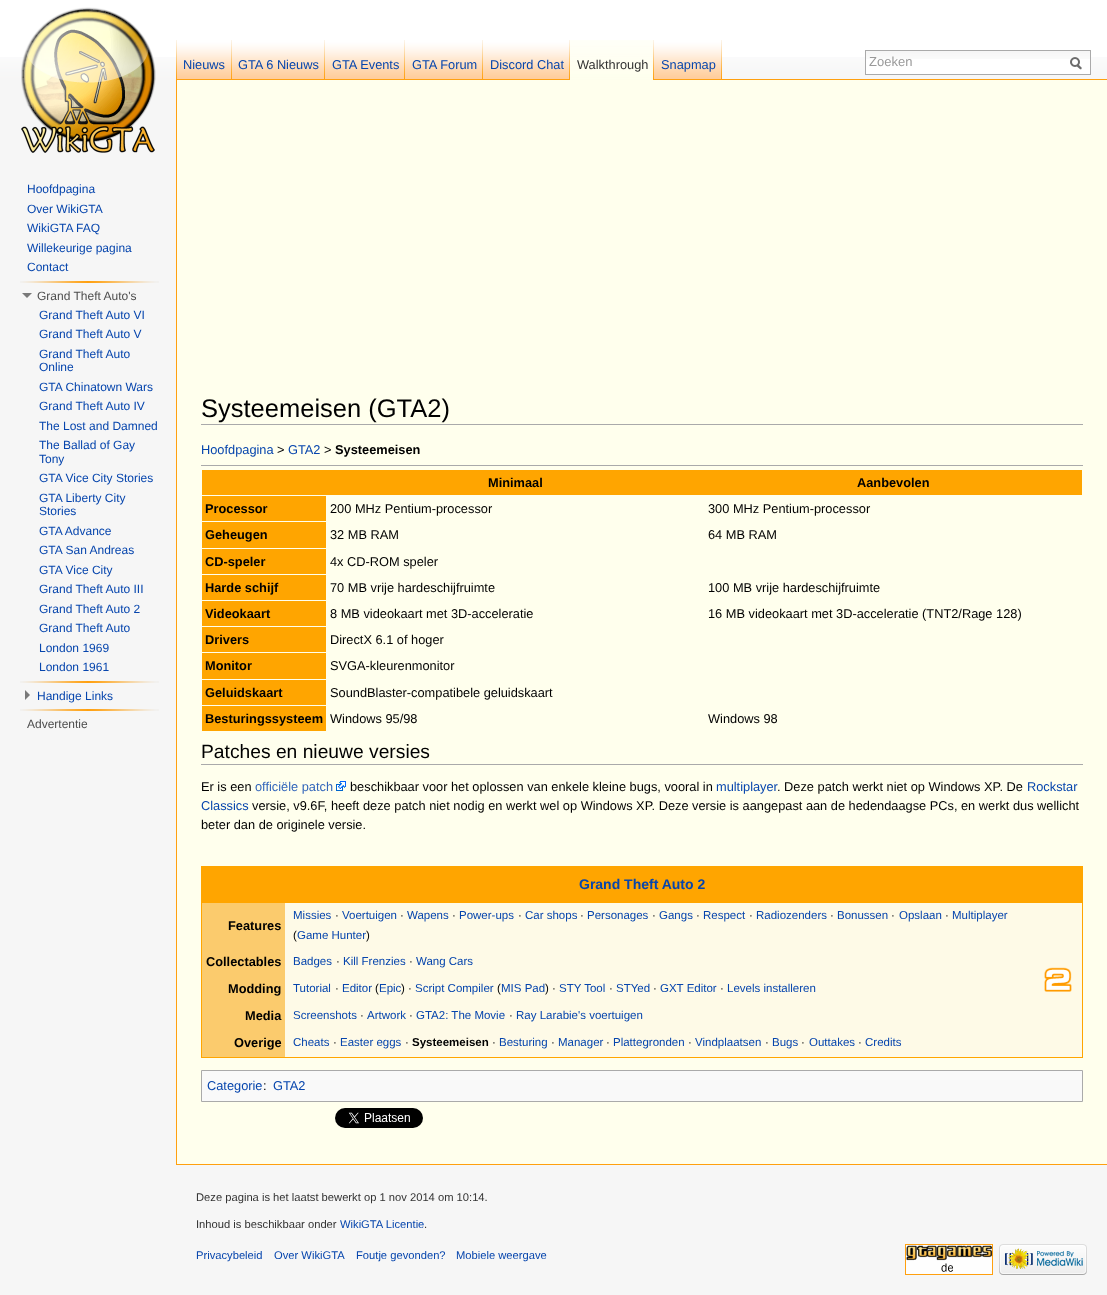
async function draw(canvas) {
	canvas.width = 1107;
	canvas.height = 1295;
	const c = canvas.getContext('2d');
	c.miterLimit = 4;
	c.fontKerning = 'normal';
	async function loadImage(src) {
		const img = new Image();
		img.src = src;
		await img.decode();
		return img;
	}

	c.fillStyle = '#f6f6f6';
	c.fillRect(0, 0, 1107, 1295);
	c.fillStyle = '#fff';
	c.fillRect(0, 0, 1107, 57);
	c.drawImage(await loadImage('img1.png'), 0, 57, 1107, 23);
	c.drawImage(await loadImage('img2.png'), 176, 40, 1, 39);
	c.drawImage(await loadImage('img3.png'), 177, 40, 55, 40);
	c.drawImage(await loadImage('img4.png'), 231, 40, 1, 39);
	c.font = '12.8px Liberation Sans';
	c.fillStyle = '#0645ad';
	c.fillText('Nieuws', 183, 69);
	c.drawImage(await loadImage('img5.png'), 232, 40, 93, 40);
	c.drawImage(await loadImage('img4.png'), 324, 40, 1, 39);
	c.fillText('GTA 6 Nieuws', 238, 69);
	c.drawImage(await loadImage('img6.png'), 325, 40, 80, 40);
	c.drawImage(await loadImage('img4.png'), 404, 40, 1, 39);
	c.fillText('GTA Events', 332, 69);
	c.drawImage(await loadImage('img7.png'), 405, 40, 78, 40);
	c.drawImage(await loadImage('img4.png'), 482, 40, 1, 39);
	c.fillText('GTA Forum', 412, 69);
	c.drawImage(await loadImage('img8.png'), 483, 40, 87, 40);
	c.drawImage(await loadImage('img4.png'), 569, 40, 1, 39);
	c.fillText('Discord Chat', 490, 69);
	c.drawImage(await loadImage('img9.png'), 570, 40, 83, 40);
	c.drawImage(await loadImage('img10.png'), 653, 40, 1, 40);
	c.fillStyle = '#333';
	c.fillText('Walkthrough', 577, 69);
	c.drawImage(await loadImage('img11.png'), 654, 40, 68, 40);
	c.drawImage(await loadImage('img4.png'), 721, 40, 1, 39);
	c.fillStyle = '#0645ad';
	c.fillText('Snapmap', 661, 69);
	c.fillStyle = '#fff';
	c.fillRect(866, 59, 224, 15);
	c.drawImage(await loadImage('img12.png'), 866, 51, 224, 8);
	c.strokeStyle = '#aaa';
	c.strokeRect(865.5, 50.5, 225, 24);
	c.font = '13px Liberation Sans';
	c.fillStyle = '#999';
	c.fillText('Zoeken', 869, 66);
	c.drawImage(await loadImage('img13.png'), 1070, 57, 12, 13);
	c.drawImage(await loadImage('img14.png'), 21, 7, 135, 146);
	c.font = '12px Liberation Sans';
	c.fillStyle = '#0645ad';
	for (const [text, x, y] of [
		['Hoofdpagina', 27, 193],
		['Over WikiGTA', 27, 213],
		['WikiGTA FAQ', 27, 232],
		['Willekeurige pagina', 27, 252],
		['Contact', 27, 271],
	]) {
		c.fillText(text, x, y);
	}
	c.drawImage(await loadImage('img15.png'), 20, 281, 139, 2);
	c.fillStyle = '#797979';
	c.beginPath();
	c.moveTo(32, 293);
	c.lineTo(27, 298);
	c.lineTo(22, 293);
	c.closePath();
	c.fill();
	c.fillStyle = '#4d4d4d';
	c.fillText('Grand Theft Auto\'s', 37, 300);
	c.fillStyle = '#0645ad';
	for (const [text, x, y] of [
		['Grand Theft Auto VI', 39, 319],
		['Grand Theft Auto V', 39, 338],
		['Grand Theft Auto', 39, 358],
		['Online', 39, 371],
		['GTA Chinatown Wars', 39, 391],
		['Grand Theft Auto IV', 39, 410],
		['The Lost and Damned', 39, 430],
		['The Ballad of Gay', 39, 449],
		['Tony', 39, 463],
		['GTA Vice City Stories', 39, 482],
		['GTA Liberty City', 39, 502],
		['Stories', 39, 515],
		['GTA Advance', 39, 535],
		['GTA San Andreas', 39, 554],
		['GTA Vice City', 39, 574],
		['Grand Theft Auto III', 39, 593],
		['Grand Theft Auto 2', 39, 613],
		['Grand Theft Auto', 39, 632],
		['London 1969', 39, 652],
		['London 1961', 39, 671],
	]) {
		c.fillText(text, x, y);
	}
	c.drawImage(await loadImage('img15.png'), 20, 681, 139, 2);
	c.fillStyle = '#797979';
	c.beginPath();
	c.moveTo(25, 690);
	c.lineTo(30, 695);
	c.lineTo(25, 700);
	c.closePath();
	c.fill();
	c.fillStyle = '#0645ad';
	c.fillText('Handige Links', 37, 700);
	c.drawImage(await loadImage('img15.png'), 20, 709, 139, 2);
	c.fillStyle = '#4d4d4d';
	c.fillText('Advertentie', 27, 728);
	for (const [x, y, w, h, color] of [
		[177, 80, 930, 1084, '#ffffed'],
		[722, 79, 385, 1, '#ffa00f'],
		[176, 1164, 931, 1, '#ffa00f'],
		[176, 79, 1, 1086, '#ffa00f'],
		[201, 424, 882, 1, '#aaa'],
	]) {
		c.fillStyle = color;
		c.fillRect(x, y, w, h);
	}
	c.font = '25.5px Liberation Sans';
	c.fillStyle = '#000';
	c.fillText('Systeemeisen (GTA2)', 201, 417);
	c.font = '12.8px Liberation Sans';
	c.fillStyle = '#0645ad';
	c.fillText('Hoofdpagina', 201, 454);
	c.fillStyle = '#000';
	c.fillText('>', 277, 454);
	c.fillStyle = '#0645ad';
	c.fillText('GTA2', 288, 454);
	c.fillStyle = '#000';
	c.fillText('>', 324, 454);
	c.font = 'bold 12.8px Liberation Sans';
	c.fillText('Systeemeisen', 335, 454);
	c.fillStyle = '#aaa';
	c.fillRect(201, 465, 882, 1);
	c.fillStyle = '#ffa500';
	c.fillRect(202, 470, 880, 25);
	c.fillStyle = '#000';
	c.fillText('Minimaal', 488, 487);
	c.fillText('Aanbevolen', 857, 487);
	c.fillStyle = '#ffa500';
	c.fillRect(202, 496, 124, 25);
	c.fillStyle = '#000';
	c.fillText('Processor', 205, 513);
	c.font = '12.8px Liberation Sans';
	c.fillText('200 MHz Pentium-processor', 330, 513);
	c.fillText('300 MHz Pentium-processor', 708, 513);
	c.fillStyle = '#ffa500';
	c.fillRect(202, 522, 124, 26);
	c.font = 'bold 12.8px Liberation Sans';
	c.fillStyle = '#000';
	c.fillText('Geheugen', 205, 539);
	c.font = '12.8px Liberation Sans';
	c.fillText('32 MB RAM', 330, 539);
	c.fillText('64 MB RAM', 708, 539);
	c.fillStyle = '#ffa500';
	c.fillRect(202, 549, 124, 25);
	c.font = 'bold 12.8px Liberation Sans';
	c.fillStyle = '#000';
	c.fillText('CD-speler', 205, 566);
	c.font = '12.8px Liberation Sans';
	c.fillText('4x CD-ROM speler', 330, 566);
	c.fillStyle = '#ffa500';
	c.fillRect(202, 575, 124, 25);
	c.font = 'bold 12.8px Liberation Sans';
	c.fillStyle = '#000';
	c.fillText('Harde schijf', 205, 592);
	c.font = '12.8px Liberation Sans';
	c.fillText('70 MB vrije hardeschijfruimte', 330, 592);
	c.fillText('100 MB vrije hardeschijfruimte', 708, 592);
	c.fillStyle = '#ffa500';
	c.fillRect(202, 601, 124, 25);
	c.font = 'bold 12.8px Liberation Sans';
	c.fillStyle = '#000';
	c.fillText('Videokaart', 205, 618);
	c.font = '12.8px Liberation Sans';
	c.fillText('8 MB videokaart met 3D-acceleratie', 330, 618);
	c.fillText('16 MB videokaart met 3D-acceleratie (TNT2/Rage 128)', 708, 618);
	c.fillStyle = '#ffa500';
	c.fillRect(202, 627, 124, 25);
	c.font = 'bold 12.8px Liberation Sans';
	c.fillStyle = '#000';
	c.fillText('Drivers', 205, 644);
	c.font = '12.8px Liberation Sans';
	c.fillText('DirectX 6.1 of hoger', 330, 644);
	c.fillStyle = '#ffa500';
	c.fillRect(202, 653, 124, 26);
	c.font = 'bold 12.8px Liberation Sans';
	c.fillStyle = '#000';
	c.fillText('Monitor', 205, 670);
	c.font = '12.8px Liberation Sans';
	c.fillText('SVGA-kleurenmonitor', 330, 670);
	c.fillStyle = '#ffa500';
	c.fillRect(202, 680, 124, 25);
	c.font = 'bold 12.8px Liberation Sans';
	c.fillStyle = '#000';
	c.fillText('Geluidskaart', 205, 697);
	c.font = '12.8px Liberation Sans';
	c.fillText('SoundBlaster-compatibele geluidskaart', 330, 697);
	c.fillStyle = '#ffa500';
	c.fillRect(202, 706, 124, 25);
	c.font = 'bold 12.8px Liberation Sans';
	c.fillStyle = '#000';
	c.fillText('Besturingssysteem', 205, 723);
	c.font = '12.8px Liberation Sans';
	c.fillText('Windows 95/98', 330, 723);
	c.fillText('Windows 98', 708, 723);
	c.fillStyle = '#aaa';
	c.fillRect(201, 764, 882, 1);
	c.font = '19.25px Liberation Sans';
	c.fillStyle = '#000';
	c.fillText('Patches en nieuwe versies', 201, 758);
	c.font = '12.8px Liberation Sans';
	c.fillText('Er is een', 201, 791);
	c.fillStyle = '#36b';
	c.fillText('officiële patch', 255, 791);
	c.drawImage(await loadImage('img16.png'), 336, 781, 10, 10);
	c.fillStyle = '#000';
	c.fillText('beschikbaar voor het oplossen van enkele kleine bugs, vooral in', 350, 791);
	c.fillStyle = '#0645ad';
	c.fillText('multiplayer', 716, 791);
	c.fillStyle = '#000';
	c.fillText('. Deze patch werkt niet op Windows XP. De', 777, 791);
	c.fillStyle = '#0645ad';
	c.fillText('Rockstar', 1027, 791);
	c.fillText('Classics', 201, 810);
	c.fillStyle = '#000';
	c.fillText('versie, v9.6F, heeft deze patch niet nodig en werkt wel op Windows XP. Deze versie is aangepast aan de hedendaagse PCs, en werkt dus wellicht', 252, 810);
	c.fillText('beter dan de originele versie.', 201, 829);
	for (const [x, y, w, h, color] of [
		[285, 903, 797, 154, '#fefae7'],
		[201, 866, 882, 1, '#ffa500'],
		[1082, 866, 1, 192, '#ffa500'],
		[201, 1057, 882, 1, '#ffa500'],
		[201, 866, 1, 192, '#ffa500'],
		[202, 867, 880, 36, '#ffa500'],
	]) {
		c.fillStyle = color;
		c.fillRect(x, y, w, h);
	}
	c.font = 'bold 14px Liberation Sans';
	c.fillStyle = '#0645ad';
	c.fillText('Grand Theft Auto 2', 579, 889);
	c.fillStyle = '#fbcb6d';
	c.fillRect(202, 903, 83, 154);
	c.font = 'bold 12.8px Liberation Sans';
	c.fillStyle = '#000';
	c.fillText('Features', 228, 930);
	c.font = '11.5px Liberation Sans';
	c.fillStyle = '#0645ad';
	c.fillText('Missies', 293, 919);
	c.fillStyle = '#000';
	c.fillText('·', 335, 919);
	c.fillStyle = '#0645ad';
	c.fillText('Voertuigen', 342, 919);
	c.fillStyle = '#000';
	c.fillText('·', 400, 919);
	c.fillStyle = '#0645ad';
	c.fillText('Wapens', 407, 919);
	c.fillStyle = '#000';
	c.fillText('·', 452, 919);
	c.fillStyle = '#0645ad';
	c.fillText('Power-ups', 459, 919);
	c.fillStyle = '#000';
	c.fillText('·', 518, 919);
	c.fillStyle = '#0645ad';
	c.fillText('Car shops', 525, 919);
	c.fillStyle = '#000';
	c.fillText('·', 580, 919);
	c.fillStyle = '#0645ad';
	c.fillText('Personages', 587, 919);
	c.fillStyle = '#000';
	c.fillText('·', 652, 919);
	c.fillStyle = '#0645ad';
	c.fillText('Gangs', 659, 919);
	c.fillStyle = '#000';
	c.fillText('·', 696, 919);
	c.fillStyle = '#0645ad';
	c.fillText('Respect', 703, 919);
	c.fillStyle = '#000';
	c.fillText('·', 749, 919);
	c.fillStyle = '#0645ad';
	c.fillText('Radiozenders', 756, 919);
	c.fillStyle = '#000';
	c.fillText('·', 830, 919);
	c.fillStyle = '#0645ad';
	c.fillText('Bonussen', 837, 919);
	c.fillStyle = '#000';
	c.fillText('·', 891, 919);
	c.fillStyle = '#0645ad';
	c.fillText('Opslaan', 899, 919);
	c.fillStyle = '#000';
	c.fillText('·', 945, 919);
	c.fillStyle = '#0645ad';
	c.fillText('Multiplayer', 952, 919);
	c.fillStyle = '#000';
	c.fillText('(', 293, 939);
	c.fillStyle = '#0645ad';
	c.fillText('Game Hunter', 297, 939);
	c.fillStyle = '#000';
	c.fillText(')', 366, 939);
	c.drawImage(await loadImage('img17.png'), 1044, 967, 28, 25);
	c.font = 'bold 12.8px Liberation Sans';
	c.fillText('Collectables', 206, 966);
	c.font = '11.5px Liberation Sans';
	c.fillStyle = '#0645ad';
	c.fillText('Badges', 293, 965);
	c.fillStyle = '#000';
	c.fillText('·', 336, 965);
	c.fillStyle = '#0645ad';
	c.fillText('Kill Frenzies', 343, 965);
	c.fillStyle = '#000';
	c.fillText('·', 409, 965);
	c.fillStyle = '#0645ad';
	c.fillText('Wang Cars', 416, 965);
	c.font = 'bold 12.8px Liberation Sans';
	c.fillStyle = '#000';
	c.fillText('Modding', 228, 993);
	c.font = '11.5px Liberation Sans';
	c.fillStyle = '#0645ad';
	c.fillText('Tutorial', 293, 992);
	c.fillStyle = '#000';
	c.fillText('·', 335, 992);
	c.fillStyle = '#0645ad';
	c.fillText('Editor', 342, 992);
	c.fillStyle = '#000';
	c.fillText('(', 375, 992);
	c.fillStyle = '#0645ad';
	c.fillText('Epic', 379, 992);
	c.fillStyle = '#000';
	c.fillText(') ·', 401, 992);
	c.fillStyle = '#0645ad';
	c.fillText('Script Compiler', 415, 992);
	c.fillStyle = '#000';
	c.fillText('(', 497, 992);
	c.fillStyle = '#0645ad';
	c.fillText('MIS Pad', 501, 992);
	c.fillStyle = '#000';
	c.fillText(') ·', 545, 992);
	c.fillStyle = '#0645ad';
	c.fillText('STY Tool', 559, 992);
	c.fillStyle = '#000';
	c.fillText('·', 609, 992);
	c.fillStyle = '#0645ad';
	c.fillText('STYed', 616, 992);
	c.fillStyle = '#000';
	c.fillText('·', 653, 992);
	c.fillStyle = '#0645ad';
	c.fillText('GXT Editor', 660, 992);
	c.fillStyle = '#000';
	c.fillText('·', 720, 992);
	c.fillStyle = '#0645ad';
	c.fillText('Levels installeren', 727, 992);
	c.font = 'bold 12.8px Liberation Sans';
	c.fillStyle = '#000';
	c.fillText('Media', 245, 1020);
	c.font = '11.5px Liberation Sans';
	c.fillStyle = '#0645ad';
	c.fillText('Screenshots', 293, 1019);
	c.fillStyle = '#000';
	c.fillText('·', 360, 1019);
	c.fillStyle = '#0645ad';
	c.fillText('Artwork', 367, 1019);
	c.fillStyle = '#000';
	c.fillText('·', 409, 1019);
	c.fillStyle = '#0645ad';
	c.fillText('GTA2: The Movie', 416, 1019);
	c.fillStyle = '#000';
	c.fillText('·', 509, 1019);
	c.fillStyle = '#0645ad';
	c.fillText('Ray Larabie\'s voertuigen', 516, 1019);
	c.font = 'bold 12.8px Liberation Sans';
	c.fillStyle = '#000';
	c.fillText('Overige', 234, 1047);
	c.font = '11.5px Liberation Sans';
	c.fillStyle = '#0645ad';
	c.fillText('Cheats', 293, 1046);
	c.fillStyle = '#000';
	c.fillText('·', 333, 1046);
	c.fillStyle = '#0645ad';
	c.fillText('Easter eggs', 340, 1046);
	c.fillStyle = '#000';
	c.fillText('·', 405, 1046);
	c.font = 'bold 11.5px Liberation Sans';
	c.fillText('Systeemeisen', 412, 1046);
	c.font = '11.5px Liberation Sans';
	c.fillText('·', 492, 1046);
	c.fillStyle = '#0645ad';
	c.fillText('Besturing', 499, 1046);
	c.fillStyle = '#000';
	c.fillText('·', 551, 1046);
	c.fillStyle = '#0645ad';
	c.fillText('Manager', 558, 1046);
	c.fillStyle = '#000';
	c.fillText('·', 606, 1046);
	c.fillStyle = '#0645ad';
	c.fillText('Plattegronden', 613, 1046);
	c.fillStyle = '#000';
	c.fillText('·', 688, 1046);
	c.fillStyle = '#0645ad';
	c.fillText('Vindplaatsen', 695, 1046);
	c.fillStyle = '#000';
	c.fillText('·', 765, 1046);
	c.fillStyle = '#0645ad';
	c.fillText('Bugs', 772, 1046);
	c.fillStyle = '#000';
	c.fillText('·', 801, 1046);
	c.fillStyle = '#0645ad';
	c.fillText('Outtakes', 809, 1046);
	c.fillStyle = '#000';
	c.fillText('·', 858, 1046);
	c.fillStyle = '#0645ad';
	c.fillText('Credits', 865, 1046);
	c.fillStyle = '#f9f9f9';
	c.beginPath();
	c.rect(201.5, 1070.5, 881, 31);
	c.fill();
	c.stroke();
	c.font = '12.8px Liberation Sans';
	c.fillStyle = '#0645ad';
	c.fillText('Categorie', 207, 1090);
	c.fillStyle = '#000';
	c.fillText(':', 263, 1090);
	c.fillStyle = '#0645ad';
	c.fillText('GTA2', 273, 1090);
	c.drawImage(await loadImage('img18.png'), 335, 1108, 88, 20);
	c.font = '11.2px Liberation Sans';
	c.fillStyle = '#333';
	c.fillText('Deze pagina is het laatst bewerkt op 1 nov 2014 om 10:14.', 196, 1201);
	c.fillText('Inhoud is beschikbaar onder', 196, 1228);
	c.fillStyle = '#0645ad';
	c.fillText('WikiGTA Licentie', 340, 1228);
	c.fillStyle = '#333';
	c.fillText('.', 424, 1228);
	c.fillStyle = '#0645ad';
	for (const [text, x, y] of [
		['Privacybeleid', 196, 1259],
		['Over WikiGTA', 274, 1259],
		['Foutje gevonden?', 356, 1259],
		['Mobiele weergave', 456, 1259],
	]) {
		c.fillText(text, x, y);
	}
	c.drawImage(await loadImage('img19.png'), 905, 1244, 88, 31);
	c.drawImage(await loadImage('img20.png'), 999, 1244, 88, 31);
}

draw(document.querySelector('canvas'));
